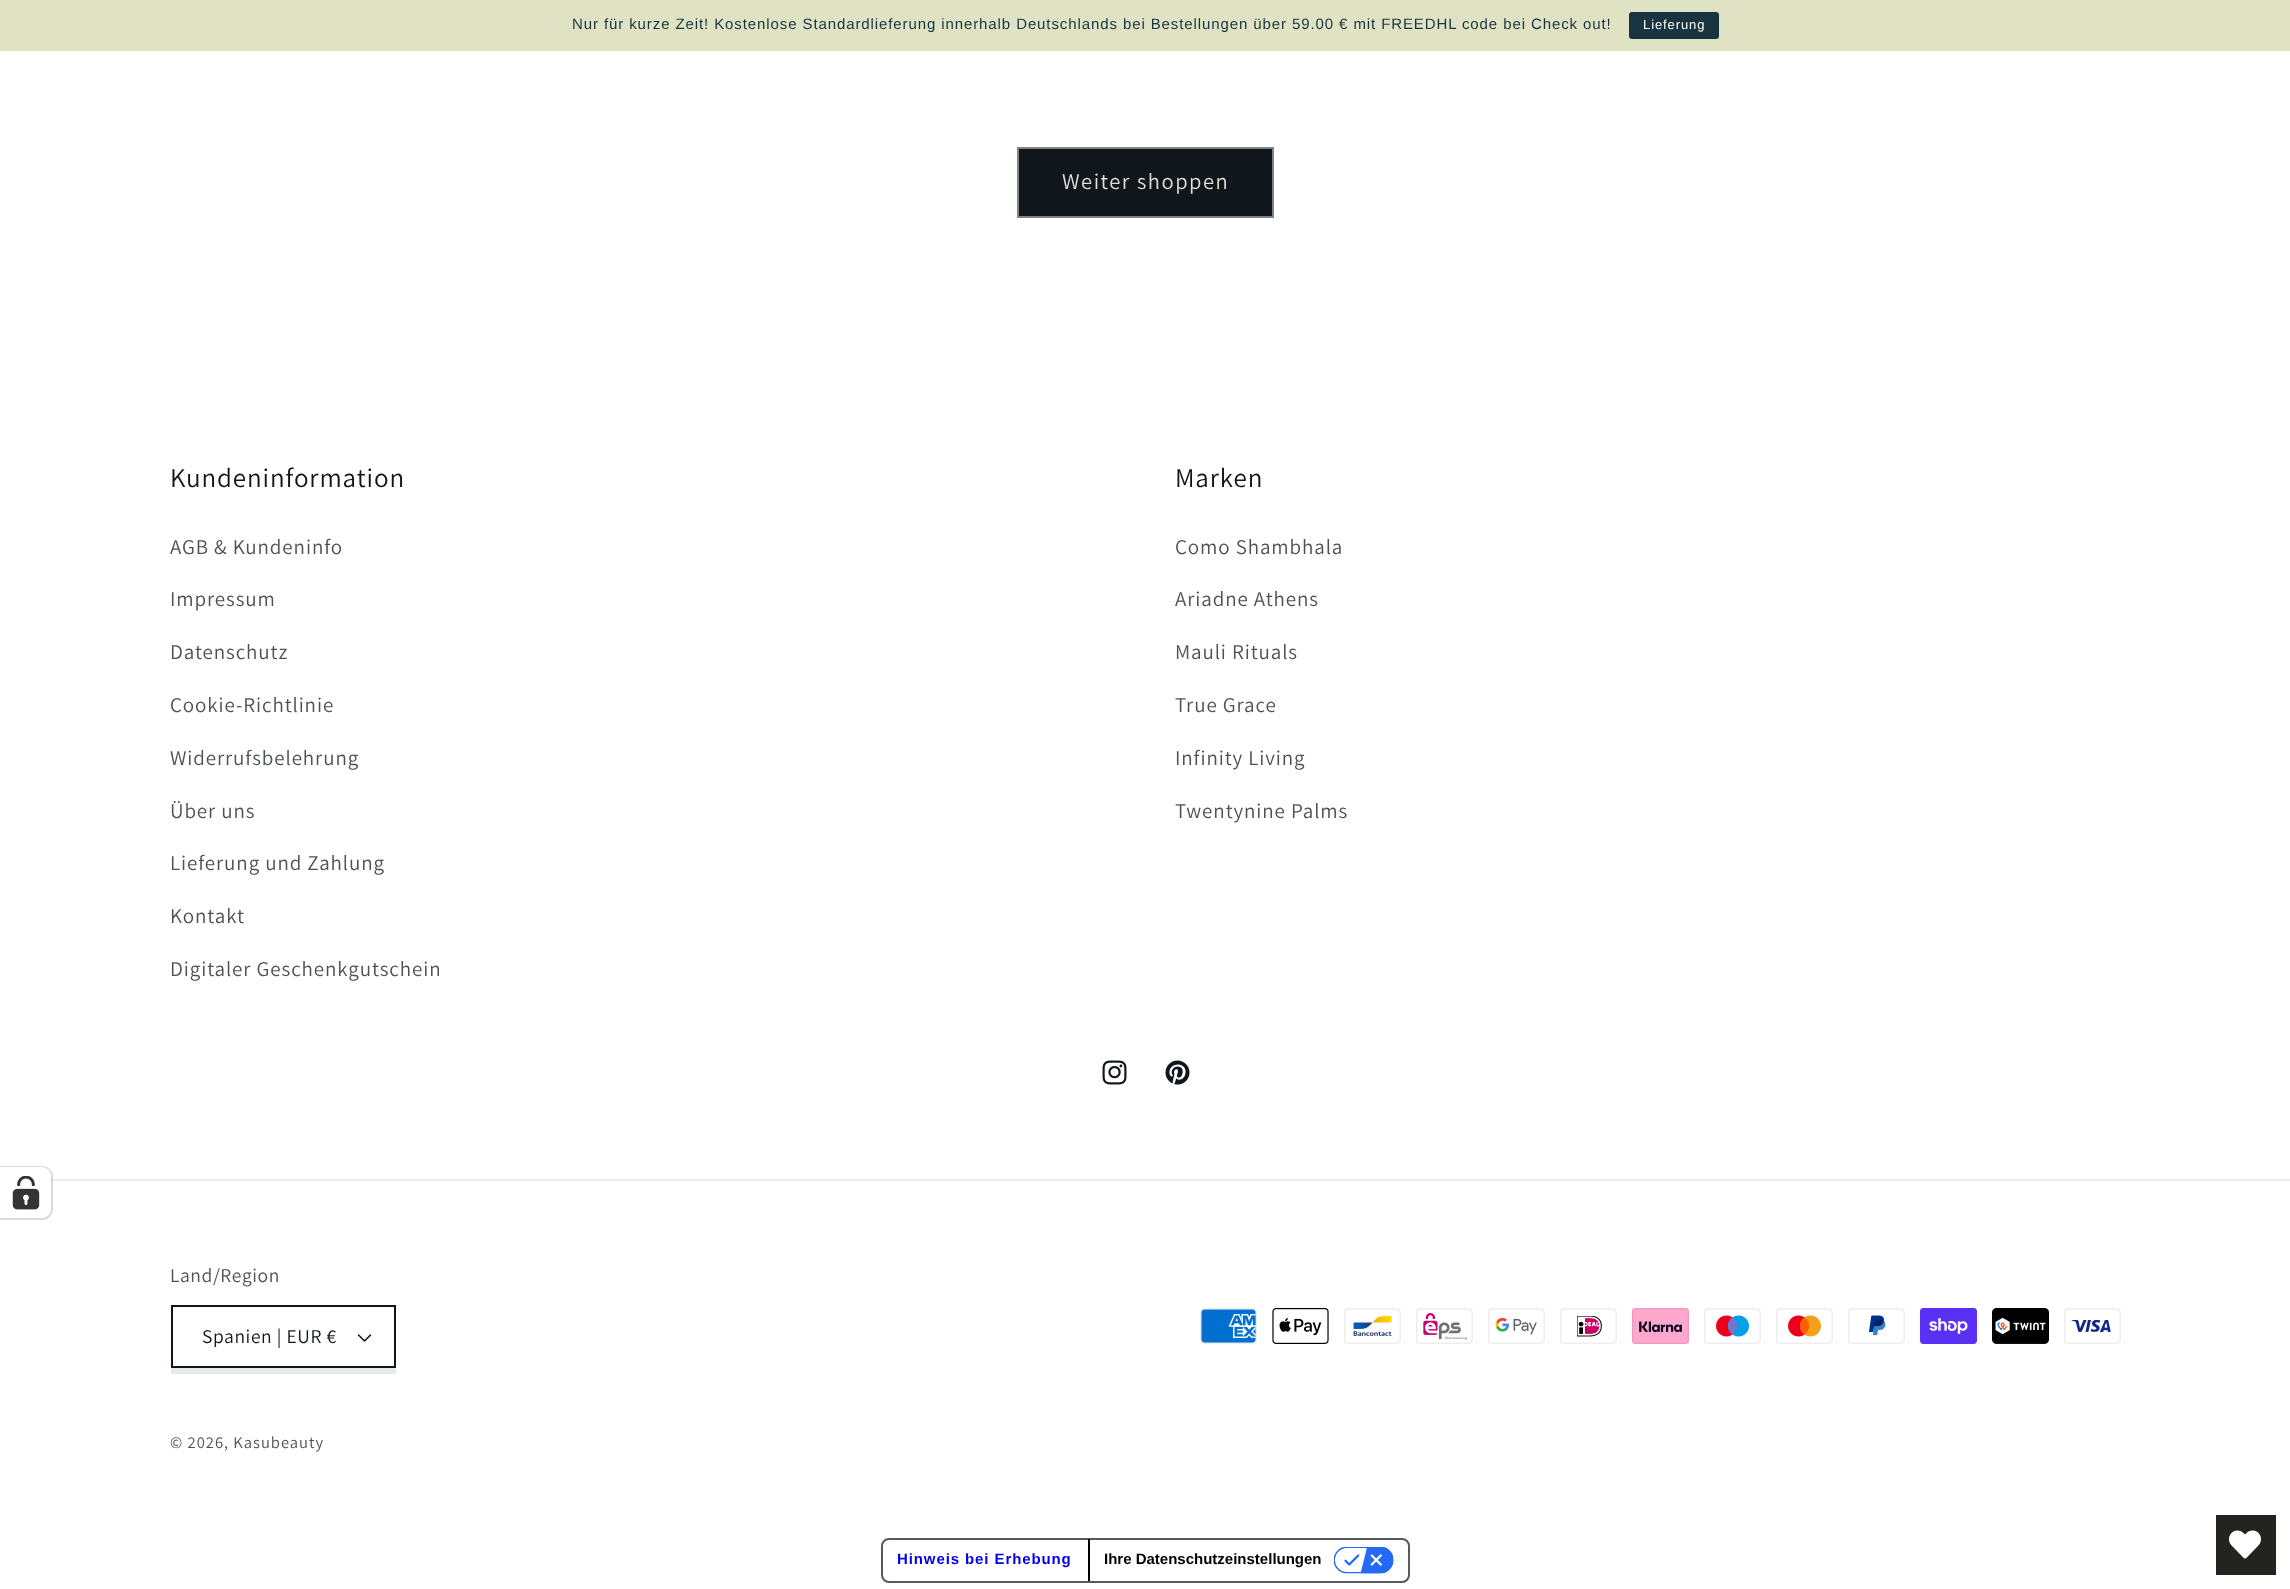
async function draw(canvas) {
	canvas.width = 2290;
	canvas.height = 1589;
	const c = canvas.getContext('2d');
	c.miterLimit = 4;
	c.fontKerning = 'normal';
	async function loadImage(src) {
		const img = new Image();
		img.src = src;
		await img.decode();
		return img;
	}

	c.fillStyle = '#fff';
	c.fillRect(0, 0, 2290, 1589);
	c.fillStyle = '#dfe3c3';
	c.fillRect(0, 0, 2290, 51);
	c.letterSpacing = '0.9px';
	c.font = '15px Liberation Sans';
	c.fillStyle = '#193441';
	c.fillText('Nur für kurze Zeit! Kostenlose Standardlieferung innerhalb Deutschlands bei Bestellungen über 59.00 € mit FREEDHL code bei Check out!', 572, 29);
	c.beginPath();
	c.roundRect(1629, 12, 90, 27, 3);
	c.fill();
	c.font = '13px Liberation Sans';
	c.fillStyle = '#fcfff5';
	c.fillText('Lieferung', 1643, 29);
	c.fillStyle = '#11151c';
	c.fillRect(1019, 149, 253, 67);
	c.strokeStyle = '#828483';
	c.lineWidth = 2;
	c.strokeRect(1018, 148, 255, 69);
	c.letterSpacing = '1.5px';
	c.font = '22.5px Assistant';
	c.fillStyle = '#dfdfd8';
	c.fillText('Weiter shoppen', 1062, 189);
	c.fillStyle = '#ececed';
	c.fillRect(51, 1179, 2239, 2);
	c.beginPath();
	c.moveTo(0, 1167);
	c.lineTo(42, 1167);
	c.bezierCurveTo(47.5, 1167, 52, 1171.5, 52, 1177);
	c.lineTo(52, 1209);
	c.bezierCurveTo(52, 1214.5, 47.5, 1219, 42, 1219);
	c.lineTo(0, 1219);
	c.closePath();
	c.strokeStyle = '#00000026';
	c.stroke();
	c.fillStyle = '#fff';
	c.beginPath();
	c.roundRect(0, 1167, 51, 51, [0, 9, 9, 0]);
	c.fill();
	c.drawImage(await loadImage('img1.png'), 12, 1176, 28, 34);
	c.letterSpacing = '0.9px';
	c.font = '27px Assistant';
	c.fillStyle = '#11151c';
	c.fillText('Kundeninformation', 170, 487);
	c.font = '21px Assistant';
	c.fillStyle = '#4d5055';
	for (const [text, x, y] of [
		['AGB & Kundeninfo', 170, 554],
		['Impressum', 170, 606],
		['Datenschutz', 170, 659],
		['Cookie-Richtlinie', 170, 712],
		['Widerrufsbelehrung', 170, 765],
		['Über uns', 170, 818],
		['Lieferung und Zahlung', 170, 870],
		['Kontakt', 170, 923],
		['Digitaler Geschenkgutschein', 170, 976],
	]) {
		c.fillText(text, x, y);
	}
	c.font = '27px Assistant';
	c.fillStyle = '#11151c';
	c.fillText('Marken', 1175, 487);
	c.font = '21px Assistant';
	c.fillStyle = '#4d5055';
	for (const [text, x, y] of [
		['Como Shambhala', 1175, 554],
		['Ariadne Athens', 1175, 606],
		['Mauli Rituals', 1175, 659],
		['True Grace', 1175, 712],
		['Infinity Living', 1175, 765],
		['Twentynine Palms', 1175, 818],
	]) {
		c.fillText(text, x, y);
	}
	c.drawImage(await loadImage('img2.png'), 1102, 1060, 25, 25);
	c.drawImage(await loadImage('img3.png'), 1165, 1060, 25, 25);
	c.letterSpacing = '0.6px';
	c.font = '19.5px Assistant';
	c.fillText('Land/Region', 170, 1282);
	c.drawImage(await loadImage('img4.png'), 357, 1334, 15, 8);
	c.strokeStyle = '#11151c';
	c.strokeRect(172, 1306, 223, 61);
	c.fillStyle = '#11151c';
	c.fillText('Spanien | EUR €', 202, 1343);
	c.fillStyle = '#e7e8e8';
	c.fillRect(171, 1368, 225, 6);
	c.drawImage(await loadImage('img5.png'), 1200, 1308, 57, 36);
	c.drawImage(await loadImage('img6.png'), 1272, 1308, 57, 36);
	c.drawImage(await loadImage('img7.png'), 1344, 1308, 57, 36);
	c.drawImage(await loadImage('img8.png'), 1416, 1308, 57, 36);
	c.drawImage(await loadImage('img9.png'), 1488, 1308, 57, 36);
	c.drawImage(await loadImage('img10.png'), 1560, 1308, 57, 36);
	c.drawImage(await loadImage('img11.png'), 1632, 1308, 57, 36);
	c.drawImage(await loadImage('img12.png'), 1704, 1308, 57, 36);
	c.drawImage(await loadImage('img13.png'), 1776, 1308, 57, 36);
	c.drawImage(await loadImage('img14.png'), 1848, 1308, 57, 36);
	c.drawImage(await loadImage('img15.png'), 1920, 1308, 57, 36);
	c.drawImage(await loadImage('img16.png'), 1992, 1308, 57, 36);
	c.drawImage(await loadImage('img17.png'), 2064, 1308, 57, 36);
	c.letterSpacing = '1px';
	c.font = '16.5px Assistant';
	c.fillStyle = '#4d5055';
	c.fillText('© 2026, Kasubeauty', 170, 1448);
	c.beginPath();
	c.roundRect(882, 1539, 527, 43, 7);
	c.strokeStyle = '#595959';
	c.stroke();
	c.letterSpacing = '0.9px';
	c.font = 'bold 15px Liberation Sans';
	c.fillStyle = '#00e';
	c.fillText('Hinweis bei Erhebung', 897, 1564);
	c.fillStyle = '#000';
	c.fillRect(1088, 1539, 2, 42);
	c.letterSpacing = '0px';
	c.fillText('Ihre Datenschutzeinstellungen', 1104, 1564);
	c.drawImage(await loadImage('img18.png'), 1334, 1547, 60, 27);
	c.fillStyle = '#23231f';
	c.fillRect(2216, 1515, 60, 60);
	c.drawImage(await loadImage('img19.png'), 2229, 1530, 32, 29);
}

draw(document.querySelector('canvas'));
